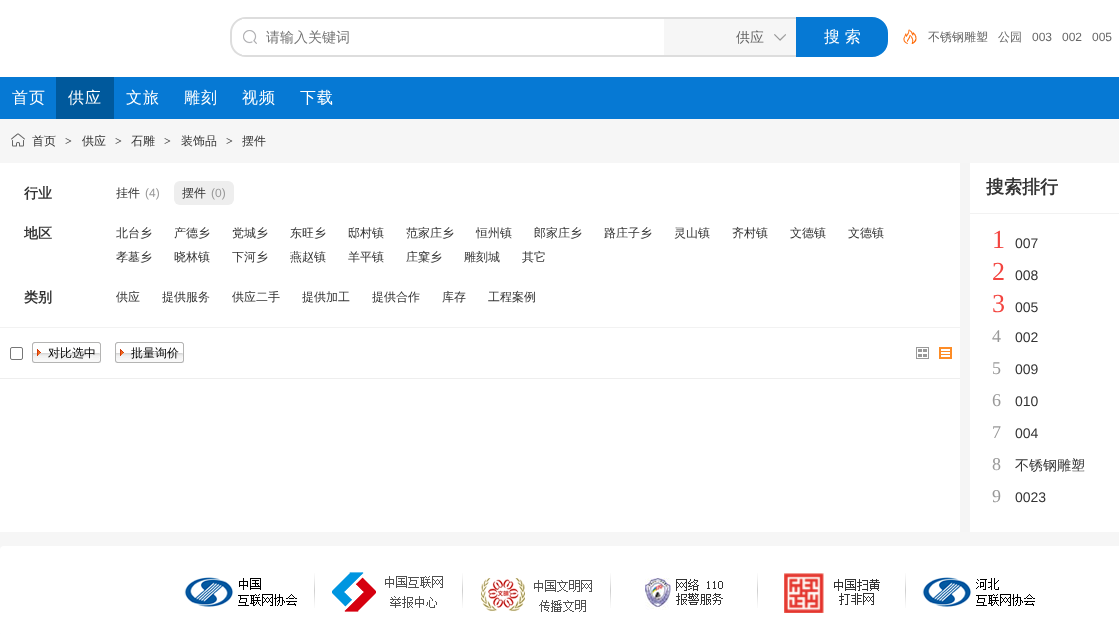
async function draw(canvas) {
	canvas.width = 1119;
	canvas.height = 634;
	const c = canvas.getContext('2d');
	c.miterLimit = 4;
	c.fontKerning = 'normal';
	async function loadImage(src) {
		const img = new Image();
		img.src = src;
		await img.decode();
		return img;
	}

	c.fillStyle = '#f6f6f6';
	c.fillRect(0, 0, 1119, 634);
	c.fillStyle = '#fff';
	c.fillRect(0, 0, 1119, 77);
	c.fillStyle = '#ddd';
	c.beginPath();
	c.moveTo(246, 17);
	c.lineTo(664, 17);
	c.lineTo(664, 57);
	c.lineTo(246, 57);
	c.bezierCurveTo(237, 57, 230, 50, 230, 41);
	c.lineTo(230, 33);
	c.bezierCurveTo(230, 24, 237, 17, 246, 17);
	c.closePath();
	c.moveTo(246, 19);
	c.lineTo(664, 19);
	c.lineTo(664, 55);
	c.lineTo(246, 55);
	c.bezierCurveTo(238, 55, 232, 49, 232, 41);
	c.lineTo(232, 33);
	c.bezierCurveTo(232, 25, 238, 19, 246, 19);
	c.closePath();
	c.fill('evenodd');
	c.fillStyle = '#fff';
	c.fillRect(242, 19, 3, 36);
	c.drawImage(await loadImage('img1.png'), 243, 30, 14, 14);
	c.font = '500 14px WenQuanYi Zen Hei';
	c.fillStyle = '#757575';
	c.fillText('请输入关键词', 266, 42);
	for (const [x, y, w, h, color] of [
		[664, 19, 132, 36, '#f6f6f6'],
		[664, 17, 132, 2, '#ddd'],
		[664, 55, 132, 2, '#ddd'],
	]) {
		c.fillStyle = color;
		c.fillRect(x, y, w, h);
	}
	c.drawImage(await loadImage('img2.png'), 774, 34, 12, 7);
	c.fillStyle = '#666';
	c.fillText('供应', 736, 42);
	c.fillStyle = '#0679d4';
	c.beginPath();
	c.roundRect(797, 18, 90, 38, [0, 15, 15, 0]);
	c.fill();
	c.strokeStyle = '#0679d4';
	c.lineWidth = 2;
	c.stroke();
	c.font = '500 16px WenQuanYi Zen Hei';
	c.fillStyle = '#fff';
	c.fillText('搜 索', 824, 42);
	c.drawImage(await loadImage('img3.png'), 903, 29, 14, 15);
	c.font = '500 12px WenQuanYi Zen Hei';
	c.fillStyle = '#666';
	c.fillText('不锈钢雕塑', 928, 41);
	c.fillText('公园', 998, 41);
	c.font = '12px Liberation Sans';
	for (const [text, x, y] of [
		['003', 1032, 41],
		['002', 1062, 41],
		['005', 1092, 41],
	]) {
		c.fillText(text, x, y);
	}
	c.fillStyle = '#0679d4';
	c.fillRect(0, 77, 1119, 42);
	c.letterSpacing = '1px';
	c.font = '500 16px WenQuanYi Zen Hei';
	c.fillStyle = '#fff';
	c.fillText('首页', 12, 103);
	c.fillStyle = '#00599c';
	c.fillRect(56, 77, 58, 42);
	c.fillStyle = '#fff';
	for (const [text, x, y] of [
		['供应', 68, 103],
		['文旅', 126, 103],
		['雕刻', 184, 103],
		['视频', 242, 103],
		['下载', 300, 103],
	]) {
		c.fillText(text, x, y);
	}
	c.drawImage(await loadImage('img4.png'), 11, 133, 14, 14);
	c.letterSpacing = '0px';
	c.font = '500 12px WenQuanYi Zen Hei';
	c.fillStyle = '#333';
	c.fillText('首页', 32, 145);
	c.font = 'bold 12px Liberation Serif';
	c.fillStyle = '#444';
	c.fillText('>', 65, 145);
	c.font = '500 12px WenQuanYi Zen Hei';
	c.fillStyle = '#333';
	c.fillText('供应', 82, 145);
	c.font = 'bold 12px Liberation Serif';
	c.fillStyle = '#444';
	c.fillText('>', 115, 145);
	c.font = '500 12px WenQuanYi Zen Hei';
	c.fillStyle = '#333';
	c.fillText('石雕', 131, 145);
	c.font = 'bold 12px Liberation Serif';
	c.fillStyle = '#444';
	c.fillText('>', 164, 145);
	c.font = '500 12px WenQuanYi Zen Hei';
	c.fillStyle = '#333';
	c.fillText('装饰品', 181, 145);
	c.font = 'bold 12px Liberation Serif';
	c.fillStyle = '#444';
	c.fillText('>', 226, 145);
	c.font = '500 12px WenQuanYi Zen Hei';
	c.fillStyle = '#333';
	c.fillText('摆件', 242, 145);
	for (const [x, y, w, h, color] of [
		[0, 163, 1119, 369, '#fff'],
		[960, 163, 10, 369, '#f5f5f5'],
		[0, 327, 960, 1, '#f2f2f2'],
	]) {
		c.fillStyle = color;
		c.fillRect(x, y, w, h);
	}
	c.font = 'bold 14px WenQuanYi Zen Hei';
	c.fillStyle = '#333';
	c.fillText('行业', 24, 198);
	c.font = '500 12px WenQuanYi Zen Hei';
	c.fillText('挂件', 116, 197);
	c.font = '12px Liberation Sans';
	c.fillStyle = '#999';
	c.fillText('(4)', 145, 197);
	c.fillStyle = '#eee';
	c.beginPath();
	c.roundRect(174, 181, 60, 24, 6);
	c.fill();
	c.font = '500 12px WenQuanYi Zen Hei';
	c.fillStyle = '#333';
	c.fillText('摆件', 182, 197);
	c.font = '12px Liberation Sans';
	c.fillStyle = '#999';
	c.fillText('(0)', 211, 197);
	c.font = 'bold 14px WenQuanYi Zen Hei';
	c.fillStyle = '#333';
	c.fillText('地区', 24, 238);
	c.font = '500 12px WenQuanYi Zen Hei';
	for (const [text, x, y] of [
		['北台乡', 116, 237],
		['产德乡', 174, 237],
		['党城乡', 232, 237],
		['东旺乡', 290, 237],
		['邸村镇', 348, 237],
		['范家庄乡', 406, 237],
		['恒州镇', 476, 237],
		['郎家庄乡', 534, 237],
		['路庄子乡', 604, 237],
		['灵山镇', 674, 237],
		['齐村镇', 732, 237],
		['文德镇', 790, 237],
		['文德镇', 848, 237],
		['孝墓乡', 116, 261],
		['晓林镇', 174, 261],
		['下河乡', 232, 261],
		['燕赵镇', 290, 261],
		['羊平镇', 348, 261],
		['庄窠乡', 406, 261],
		['雕刻城', 464, 261],
		['其它', 522, 261],
	]) {
		c.fillText(text, x, y);
	}
	c.font = 'bold 14px WenQuanYi Zen Hei';
	c.fillText('类别', 24, 302);
	c.font = '500 12px WenQuanYi Zen Hei';
	for (const [text, x, y] of [
		['供应', 116, 301],
		['提供服务', 162, 301],
		['供应二手', 232, 301],
		['提供加工', 302, 301],
		['提供合作', 372, 301],
		['库存', 442, 301],
		['工程案例', 488, 301],
	]) {
		c.fillText(text, x, y);
	}
	c.fillStyle = '#eee';
	c.fillRect(0, 378, 960, 1);
	c.beginPath();
	c.roundRect(10.5, 347.5, 12, 12, 1.5);
	c.strokeStyle = '#767676';
	c.lineWidth = 1;
	c.stroke();
	c.drawImage(await loadImage('img5.png'), 32, 342, 69, 21);
	c.fillStyle = '#000';
	c.fillText('对比选中', 48, 357);
	c.drawImage(await loadImage('img5.png'), 115, 342, 69, 21);
	c.fillText('批量询价', 131, 357);
	c.drawImage(await loadImage('img6.png'), 916, 347, 13, 12);
	c.drawImage(await loadImage('img7.png'), 939, 347, 13, 12);
	c.fillStyle = '#f2f2f2';
	c.fillRect(970, 213, 149, 1);
	c.font = 'bold 18px WenQuanYi Zen Hei';
	c.fillStyle = '#333';
	c.fillText('搜索排行', 986, 193);
	c.font = '26px Liberation Serif';
	c.fillStyle = '#f34540';
	c.fillText('1', 992, 248);
	c.font = '14px Liberation Sans';
	c.fillStyle = '#333';
	c.fillText('007', 1015, 248);
	c.font = '26px Liberation Serif';
	c.fillStyle = '#f34540';
	c.fillText('2', 992, 280);
	c.font = '14px Liberation Sans';
	c.fillStyle = '#333';
	c.fillText('008', 1015, 280);
	c.font = '26px Liberation Serif';
	c.fillStyle = '#f34540';
	c.fillText('3', 992, 312);
	c.font = '14px Liberation Sans';
	c.fillStyle = '#333';
	c.fillText('005', 1015, 312);
	c.font = '18px Liberation Serif';
	c.fillStyle = '#999';
	c.fillText('4', 992, 342);
	c.font = '14px Liberation Sans';
	c.fillStyle = '#333';
	c.fillText('002', 1015, 342);
	c.font = '18px Liberation Serif';
	c.fillStyle = '#999';
	c.fillText('5', 992, 374);
	c.font = '14px Liberation Sans';
	c.fillStyle = '#333';
	c.fillText('009', 1015, 374);
	c.font = '18px Liberation Serif';
	c.fillStyle = '#999';
	c.fillText('6', 992, 406);
	c.font = '14px Liberation Sans';
	c.fillStyle = '#333';
	c.fillText('010', 1015, 406);
	c.font = '18px Liberation Serif';
	c.fillStyle = '#999';
	c.fillText('7', 992, 438);
	c.font = '14px Liberation Sans';
	c.fillStyle = '#333';
	c.fillText('004', 1015, 438);
	c.font = '18px Liberation Serif';
	c.fillStyle = '#999';
	c.fillText('8', 992, 470);
	c.font = '500 14px WenQuanYi Zen Hei';
	c.fillStyle = '#333';
	c.fillText('不锈钢雕塑', 1015, 470);
	c.font = '18px Liberation Serif';
	c.fillStyle = '#999';
	c.fillText('9', 992, 502);
	c.font = '14px Liberation Sans';
	c.fillStyle = '#333';
	c.fillText('0023', 1015, 502);
	c.fillStyle = '#fff';
	c.beginPath();
	c.roundRect(0, 546, 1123, 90, 4);
	c.fill();
	c.drawImage(await loadImage('img8.png'), 184, 577, 113, 30);
	c.drawImage(await loadImage('img9.png'), 314, 573, 1, 35);
	c.drawImage(await loadImage('img10.png'), 332, 572, 111, 40);
	c.drawImage(await loadImage('img9.png'), 462, 573, 1, 35);
	c.drawImage(await loadImage('img11.png'), 481, 578, 111, 34);
	c.drawImage(await loadImage('img9.png'), 610, 573, 1, 35);
	c.drawImage(await loadImage('img12.png'), 645, 578, 78, 32);
	c.drawImage(await loadImage('img9.png'), 757, 573, 1, 35);
	c.drawImage(await loadImage('img13.png'), 784, 573, 96, 40);
	c.drawImage(await loadImage('img9.png'), 905, 573, 1, 35);
	c.drawImage(await loadImage('img14.png'), 922, 577, 113, 30);
}

draw(document.querySelector('canvas'));
